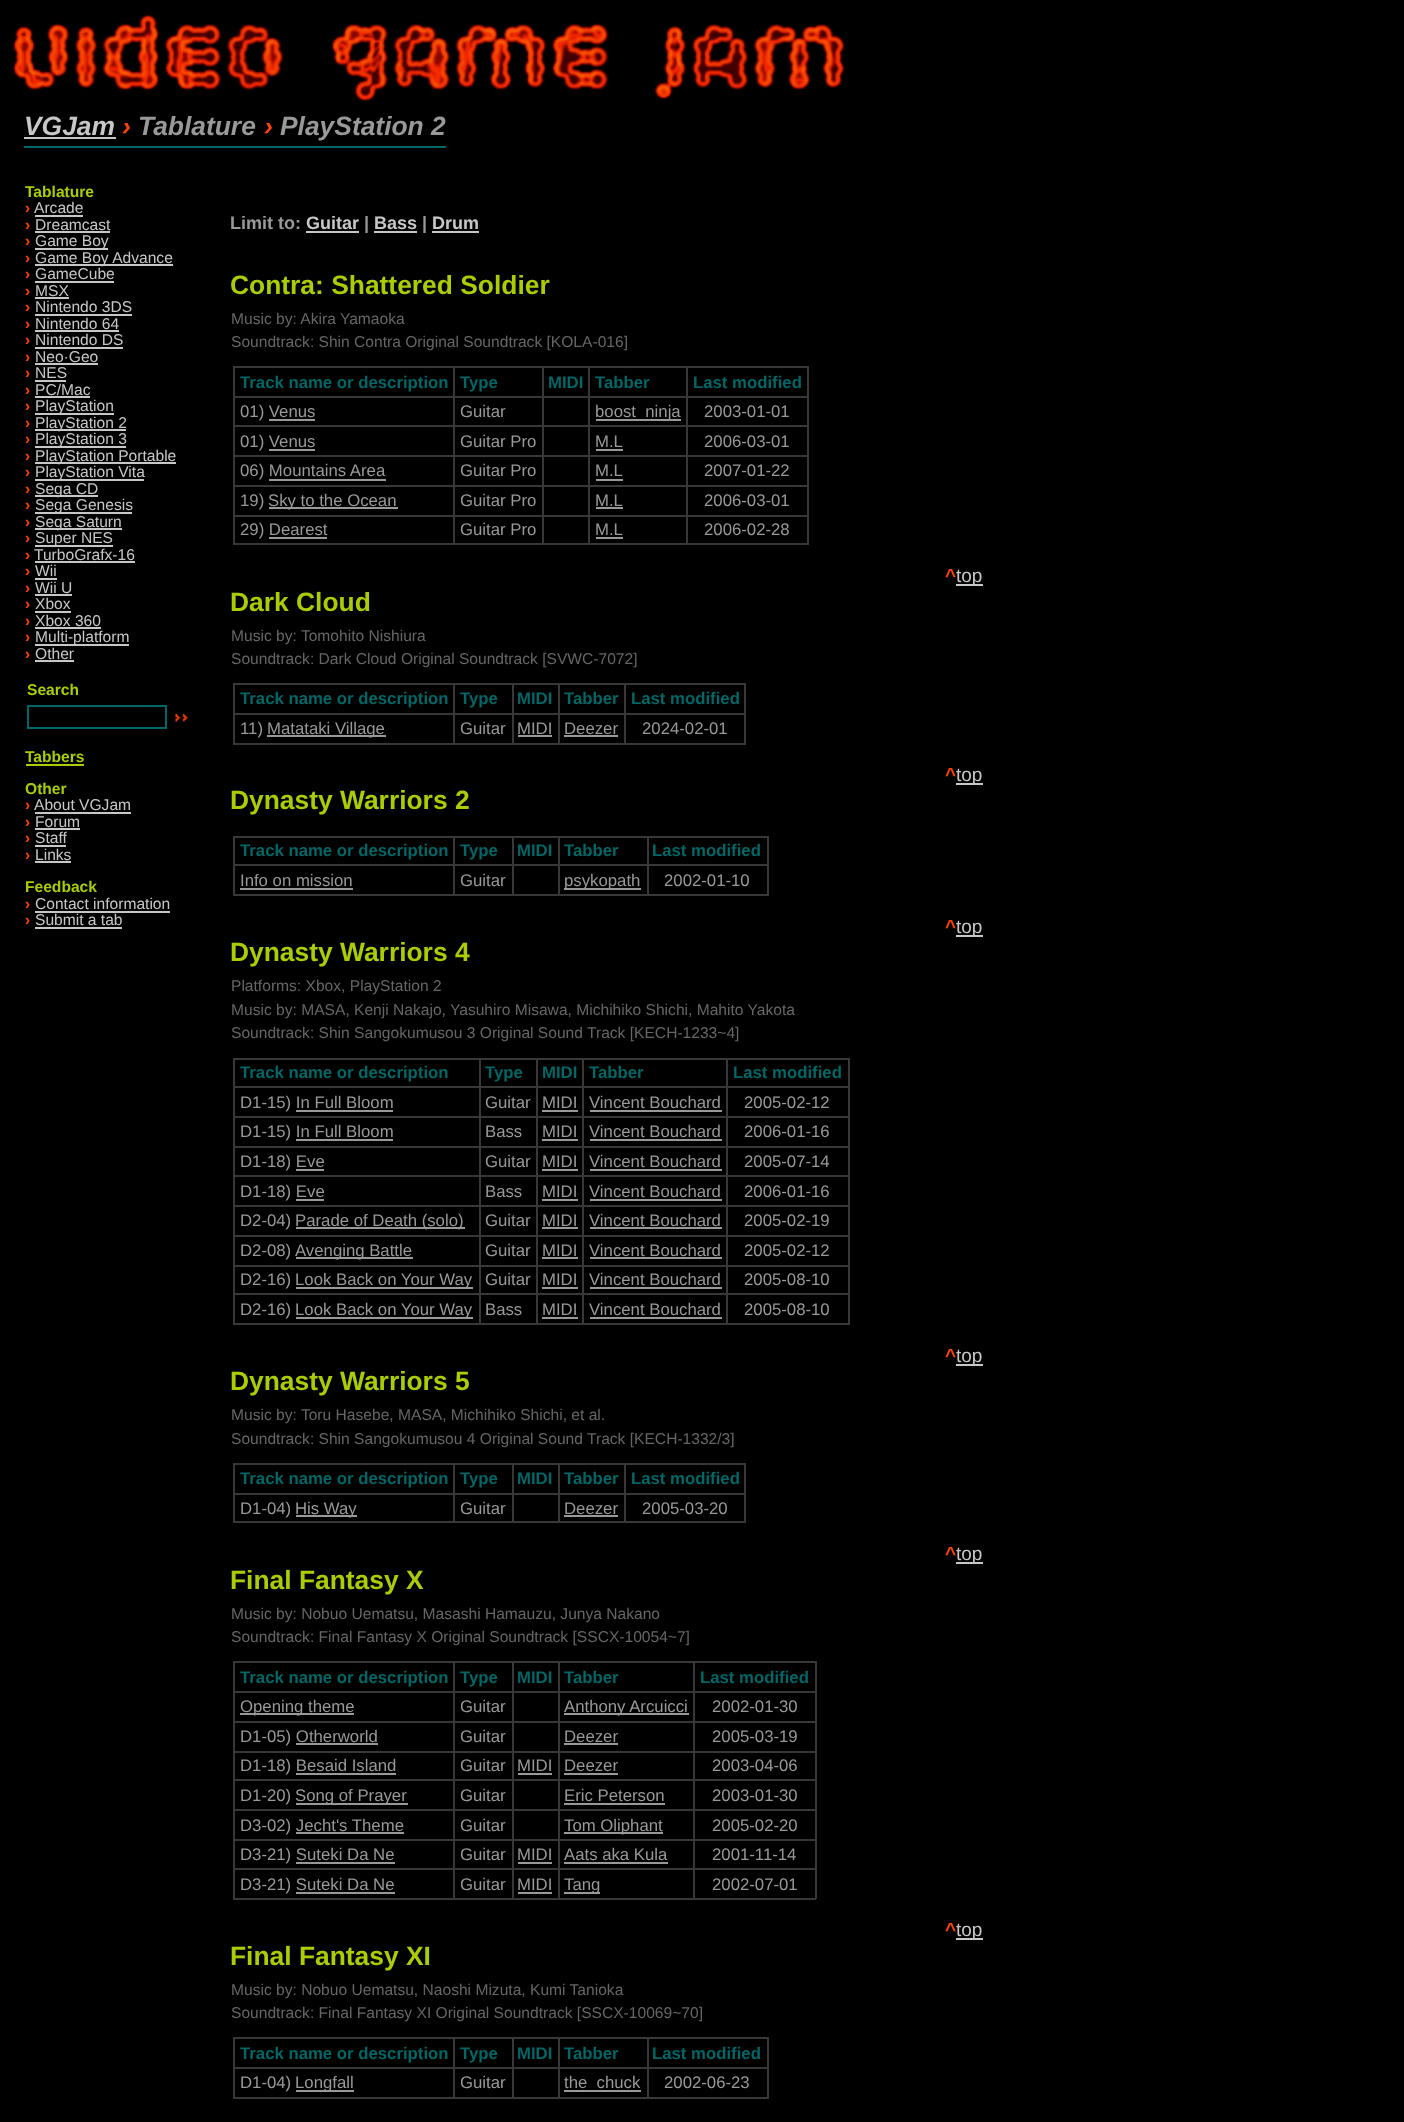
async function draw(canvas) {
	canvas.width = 1404;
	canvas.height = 2122;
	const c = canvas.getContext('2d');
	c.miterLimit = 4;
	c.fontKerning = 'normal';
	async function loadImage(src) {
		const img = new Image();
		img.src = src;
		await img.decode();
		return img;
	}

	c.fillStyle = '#000';
	c.fillRect(0, 0, 1404, 2122);
	c.drawImage(await loadImage('img1.png'), 13, 14, 832, 87);
	c.font = 'italic bold 26.4px Liberation Sans';
	c.fillStyle = '#c7c7c7';
	c.fillText('VGJam', 24, 135);
	c.fillRect(24, 137, 92, 2);
	c.fillStyle = '#f40';
	c.fillText('›', 122, 135);
	c.fillStyle = '#066';
	c.fillRect(24, 146, 422, 2);
	c.fillStyle = '#999';
	c.fillText('Tablature', 138, 135);
	c.fillStyle = '#f40';
	c.fillText('›', 264, 135);
	c.fillStyle = '#999';
	c.fillText('PlayStation 2', 280, 135);
	c.font = 'bold 15.6px Liberation Sans';
	c.fillStyle = '#ac0';
	c.fillText('Tablature', 25, 197);
	c.fillStyle = '#f40';
	c.fillText('›', 25, 213);
	c.font = '15.6px Liberation Sans';
	c.fillStyle = '#c7c7c7';
	c.fillText('Arcade', 34, 213);
	c.fillRect(35, 215, 48, 2);
	c.font = 'bold 15.6px Liberation Sans';
	c.fillStyle = '#f40';
	c.fillText('›', 25, 230);
	c.font = '15.6px Liberation Sans';
	c.fillStyle = '#c7c7c7';
	c.fillText('Dreamcast', 35, 230);
	c.fillRect(35, 231, 75, 2);
	c.font = 'bold 15.6px Liberation Sans';
	c.fillStyle = '#f40';
	c.fillText('›', 25, 246);
	c.fillStyle = '#c7c7c7';
	c.fillRect(35, 248, 73, 2);
	c.font = '15.6px Liberation Sans';
	c.fillText('Game Boy', 35, 246);
	c.font = 'bold 15.6px Liberation Sans';
	c.fillStyle = '#f40';
	c.fillText('›', 25, 263);
	c.fillStyle = '#c7c7c7';
	c.fillRect(35, 264, 138, 2);
	c.font = '15.6px Liberation Sans';
	c.fillText('Game Boy Advance', 35, 263);
	c.font = 'bold 15.6px Liberation Sans';
	c.fillStyle = '#f40';
	c.fillText('›', 25, 279);
	c.font = '15.6px Liberation Sans';
	c.fillStyle = '#c7c7c7';
	c.fillText('GameCube', 35, 279);
	c.fillRect(35, 281, 79, 2);
	c.font = 'bold 15.6px Liberation Sans';
	c.fillStyle = '#f40';
	c.fillText('›', 25, 296);
	c.font = '15.6px Liberation Sans';
	c.fillStyle = '#c7c7c7';
	c.fillText('MSX', 35, 296);
	c.fillRect(35, 297, 34, 2);
	c.font = 'bold 15.6px Liberation Sans';
	c.fillStyle = '#f40';
	c.fillText('›', 25, 312);
	c.font = '15.6px Liberation Sans';
	c.fillStyle = '#c7c7c7';
	c.fillText('Nintendo 3DS', 35, 312);
	c.fillRect(35, 314, 97, 2);
	c.font = 'bold 15.6px Liberation Sans';
	c.fillStyle = '#f40';
	c.fillText('›', 25, 329);
	c.font = '15.6px Liberation Sans';
	c.fillStyle = '#c7c7c7';
	c.fillText('Nintendo 64', 35, 329);
	c.fillRect(35, 330, 84, 2);
	c.font = 'bold 15.6px Liberation Sans';
	c.fillStyle = '#f40';
	c.fillText('›', 25, 345);
	c.font = '15.6px Liberation Sans';
	c.fillStyle = '#c7c7c7';
	c.fillText('Nintendo DS', 35, 345);
	c.fillRect(35, 347, 88, 2);
	c.font = 'bold 15.6px Liberation Sans';
	c.fillStyle = '#f40';
	c.fillText('›', 25, 362);
	c.font = '15.6px Liberation Sans';
	c.fillStyle = '#c7c7c7';
	c.fillText('Neo·Geo', 35, 362);
	c.fillRect(35, 363, 63, 2);
	c.font = 'bold 15.6px Liberation Sans';
	c.fillStyle = '#f40';
	c.fillText('›', 25, 378);
	c.font = '15.6px Liberation Sans';
	c.fillStyle = '#c7c7c7';
	c.fillText('NES', 35, 378);
	c.fillRect(35, 380, 31, 2);
	c.font = 'bold 15.6px Liberation Sans';
	c.fillStyle = '#f40';
	c.fillText('›', 25, 395);
	c.font = '15.6px Liberation Sans';
	c.fillStyle = '#c7c7c7';
	c.fillText('PC/Mac', 35, 395);
	c.fillRect(35, 396, 55, 2);
	c.font = 'bold 15.6px Liberation Sans';
	c.fillStyle = '#f40';
	c.fillText('›', 25, 411);
	c.fillStyle = '#c7c7c7';
	c.fillRect(35, 413, 79, 2);
	c.font = '15.6px Liberation Sans';
	c.fillText('PlayStation', 35, 411);
	c.font = 'bold 15.6px Liberation Sans';
	c.fillStyle = '#f40';
	c.fillText('›', 25, 428);
	c.fillStyle = '#c7c7c7';
	c.fillRect(35, 429, 91, 2);
	c.font = '15.6px Liberation Sans';
	c.fillText('PlayStation 2', 35, 428);
	c.font = 'bold 15.6px Liberation Sans';
	c.fillStyle = '#f40';
	c.fillText('›', 25, 444);
	c.fillStyle = '#c7c7c7';
	c.fillRect(35, 446, 91, 2);
	c.font = '15.6px Liberation Sans';
	c.fillText('PlayStation 3', 35, 444);
	c.font = 'bold 15.6px Liberation Sans';
	c.fillStyle = '#f40';
	c.fillText('›', 25, 461);
	c.fillStyle = '#c7c7c7';
	c.fillRect(35, 462, 141, 2);
	c.font = '15.6px Liberation Sans';
	c.fillText('PlayStation Portable', 35, 461);
	c.font = 'bold 15.6px Liberation Sans';
	c.fillStyle = '#f40';
	c.fillText('›', 25, 477);
	c.fillStyle = '#c7c7c7';
	c.fillRect(35, 479, 109, 2);
	c.font = '15.6px Liberation Sans';
	c.fillText('PlayStation Vita', 35, 477);
	c.font = 'bold 15.6px Liberation Sans';
	c.fillStyle = '#f40';
	c.fillText('›', 25, 494);
	c.fillStyle = '#c7c7c7';
	c.fillRect(35, 495, 63, 2);
	c.font = '15.6px Liberation Sans';
	c.fillText('Sega CD', 35, 494);
	c.font = 'bold 15.6px Liberation Sans';
	c.fillStyle = '#f40';
	c.fillText('›', 25, 510);
	c.fillStyle = '#c7c7c7';
	c.fillRect(35, 512, 97, 2);
	c.font = '15.6px Liberation Sans';
	c.fillText('Sega Genesis', 35, 510);
	c.font = 'bold 15.6px Liberation Sans';
	c.fillStyle = '#f40';
	c.fillText('›', 25, 527);
	c.fillStyle = '#c7c7c7';
	c.fillRect(35, 528, 87, 2);
	c.font = '15.6px Liberation Sans';
	c.fillText('Sega Saturn', 35, 527);
	c.font = 'bold 15.6px Liberation Sans';
	c.fillStyle = '#f40';
	c.fillText('›', 25, 543);
	c.fillStyle = '#c7c7c7';
	c.fillRect(35, 545, 78, 2);
	c.font = '15.6px Liberation Sans';
	c.fillText('Super NES', 35, 543);
	c.font = 'bold 15.6px Liberation Sans';
	c.fillStyle = '#f40';
	c.fillText('›', 25, 560);
	c.font = '15.6px Liberation Sans';
	c.fillStyle = '#c7c7c7';
	c.fillText('TurboGrafx-16', 34, 560);
	c.fillRect(35, 561, 100, 2);
	c.font = 'bold 15.6px Liberation Sans';
	c.fillStyle = '#f40';
	c.fillText('›', 25, 576);
	c.font = '15.6px Liberation Sans';
	c.fillStyle = '#c7c7c7';
	c.fillText('Wii', 35, 576);
	c.fillRect(35, 578, 22, 2);
	c.font = 'bold 15.6px Liberation Sans';
	c.fillStyle = '#f40';
	c.fillText('›', 25, 593);
	c.font = '15.6px Liberation Sans';
	c.fillStyle = '#c7c7c7';
	c.fillText('Wii U', 35, 593);
	c.fillRect(35, 594, 37, 2);
	c.font = 'bold 15.6px Liberation Sans';
	c.fillStyle = '#f40';
	c.fillText('›', 25, 609);
	c.font = '15.6px Liberation Sans';
	c.fillStyle = '#c7c7c7';
	c.fillText('Xbox', 35, 609);
	c.fillRect(35, 611, 36, 2);
	c.font = 'bold 15.6px Liberation Sans';
	c.fillStyle = '#f40';
	c.fillText('›', 25, 626);
	c.font = '15.6px Liberation Sans';
	c.fillStyle = '#c7c7c7';
	c.fillText('Xbox 360', 35, 626);
	c.fillRect(35, 627, 66, 2);
	c.font = 'bold 15.6px Liberation Sans';
	c.fillStyle = '#f40';
	c.fillText('›', 25, 642);
	c.fillStyle = '#c7c7c7';
	c.fillRect(35, 644, 94, 2);
	c.font = '15.6px Liberation Sans';
	c.fillText('Multi-platform', 35, 642);
	c.font = 'bold 15.6px Liberation Sans';
	c.fillStyle = '#f40';
	c.fillText('›', 25, 659);
	c.font = '15.6px Liberation Sans';
	c.fillStyle = '#c7c7c7';
	c.fillText('Other', 35, 659);
	c.fillRect(35, 660, 39, 2);
	c.font = 'bold 15.6px Liberation Sans';
	c.fillStyle = '#ac0';
	c.fillText('Search', 27, 695);
	c.strokeStyle = '#066';
	c.lineWidth = 2;
	c.strokeRect(28, 706, 138, 22);
	c.drawImage(await loadImage('img2.png'), 175, 714, 13, 8);
	c.fillText('Tabbers', 25, 762);
	c.fillRect(26, 764, 58, 2);
	c.fillText('Other', 25, 794);
	c.fillStyle = '#f40';
	c.fillText('›', 25, 810);
	c.font = '15.6px Liberation Sans';
	c.fillStyle = '#c7c7c7';
	c.fillText('About VGJam', 34, 810);
	c.fillRect(35, 812, 96, 2);
	c.font = 'bold 15.6px Liberation Sans';
	c.fillStyle = '#f40';
	c.fillText('›', 25, 827);
	c.font = '15.6px Liberation Sans';
	c.fillStyle = '#c7c7c7';
	c.fillText('Forum', 35, 827);
	c.fillRect(35, 828, 45, 2);
	c.font = 'bold 15.6px Liberation Sans';
	c.fillStyle = '#f40';
	c.fillText('›', 25, 843);
	c.font = '15.6px Liberation Sans';
	c.fillStyle = '#c7c7c7';
	c.fillText('Staff', 35, 843);
	c.fillRect(35, 845, 31, 2);
	c.font = 'bold 15.6px Liberation Sans';
	c.fillStyle = '#f40';
	c.fillText('›', 25, 860);
	c.font = '15.6px Liberation Sans';
	c.fillStyle = '#c7c7c7';
	c.fillText('Links', 35, 860);
	c.fillRect(35, 861, 36, 2);
	c.font = 'bold 15.6px Liberation Sans';
	c.fillStyle = '#ac0';
	c.fillText('Feedback', 25, 892);
	c.fillStyle = '#f40';
	c.fillText('›', 25, 909);
	c.font = '15.6px Liberation Sans';
	c.fillStyle = '#c7c7c7';
	c.fillText('Contact information', 35, 909);
	c.fillRect(35, 911, 135, 2);
	c.font = 'bold 15.6px Liberation Sans';
	c.fillStyle = '#f40';
	c.fillText('›', 25, 925);
	c.font = '15.6px Liberation Sans';
	c.fillStyle = '#c7c7c7';
	c.fillText('Submit a tab', 35, 925);
	c.fillRect(35, 927, 87, 2);
	c.font = 'bold 18px Liberation Sans';
	c.fillStyle = '#999';
	c.fillText('Limit to:', 230, 229);
	c.fillStyle = '#c7c7c7';
	c.fillText('Guitar', 306, 229);
	c.fillRect(306, 231, 53, 2);
	c.fillStyle = '#999';
	c.fillText('|', 364, 229);
	c.fillStyle = '#c7c7c7';
	c.fillText('Bass', 374, 229);
	c.fillRect(374, 231, 43, 2);
	c.fillStyle = '#999';
	c.fillText('|', 422, 229);
	c.fillStyle = '#c7c7c7';
	c.fillText('Drum', 432, 229);
	c.fillRect(432, 231, 47, 2);
	c.font = 'bold 26.4px Liberation Sans';
	c.fillStyle = '#ac0';
	c.fillText('Contra: Shattered Soldier', 230, 294);
	c.font = '15.6px Liberation Sans';
	c.fillStyle = '#666';
	c.fillText('Music by: Akira Yamaoka', 231, 324);
	c.fillText('Soundtrack: Shin Contra Original Soundtrack [KOLA-016]', 231, 347);
	for (const [x, y, w, h, color] of [
		[233, 366, 576, 2, '#383838'],
		[807, 366, 2, 179, '#383838'],
		[233, 543, 576, 2, '#383838'],
		[233, 366, 2, 179, '#383838'],
	]) {
		c.fillStyle = color;
		c.fillRect(x, y, w, h);
	}
	c.font = 'bold 16.75px Liberation Sans';
	c.fillStyle = '#066';
	c.fillText('Track name or description', 240, 388);
	for (const [x, y, w, h, color] of [
		[686, 396, 123, 2, '#383838'],
		[686, 425, 123, 2, '#383838'],
		[686, 455, 123, 2, '#383838'],
		[686, 485, 123, 2, '#383838'],
		[686, 515, 123, 2, '#383838'],
		[686, 515, 2, 30, '#383838'],
		[588, 515, 99, 2, '#383838'],
		[686, 485, 2, 31, '#383838'],
		[588, 485, 99, 2, '#383838'],
		[686, 455, 2, 31, '#383838'],
		[588, 455, 99, 2, '#383838'],
		[686, 425, 2, 31, '#383838'],
		[588, 425, 99, 2, '#383838'],
		[686, 396, 2, 30, '#383838'],
		[588, 396, 99, 2, '#383838'],
		[588, 515, 2, 30, '#383838'],
		[542, 515, 48, 2, '#383838'],
		[588, 485, 2, 31, '#383838'],
		[542, 485, 48, 2, '#383838'],
		[588, 455, 2, 31, '#383838'],
		[542, 455, 48, 2, '#383838'],
		[588, 425, 2, 31, '#383838'],
		[542, 425, 48, 2, '#383838'],
		[588, 396, 2, 30, '#383838'],
		[542, 396, 48, 2, '#383838'],
		[542, 515, 2, 30, '#383838'],
		[453, 515, 90, 2, '#383838'],
		[542, 485, 2, 31, '#383838'],
		[453, 485, 90, 2, '#383838'],
		[542, 455, 2, 31, '#383838'],
		[453, 455, 90, 2, '#383838'],
		[542, 425, 2, 31, '#383838'],
		[453, 425, 90, 2, '#383838'],
		[542, 396, 2, 30, '#383838'],
		[453, 396, 90, 2, '#383838'],
		[453, 515, 2, 30, '#383838'],
		[233, 515, 222, 2, '#383838'],
		[453, 485, 2, 31, '#383838'],
		[233, 485, 222, 2, '#383838'],
		[453, 455, 2, 31, '#383838'],
		[233, 455, 222, 2, '#383838'],
		[453, 425, 2, 31, '#383838'],
		[233, 425, 222, 2, '#383838'],
		[453, 396, 2, 30, '#383838'],
		[233, 396, 222, 2, '#383838'],
		[453, 366, 2, 32, '#383838'],
	]) {
		c.fillStyle = color;
		c.fillRect(x, y, w, h);
	}
	c.fillStyle = '#066';
	c.fillText('Type', 460, 388);
	c.fillStyle = '#383838';
	c.fillRect(542, 366, 2, 32);
	c.fillStyle = '#066';
	c.fillText('MIDI', 548, 388);
	c.fillStyle = '#383838';
	c.fillRect(588, 366, 2, 32);
	c.fillStyle = '#066';
	c.fillText('Tabber', 595, 388);
	c.fillStyle = '#383838';
	c.fillRect(686, 366, 2, 32);
	c.fillStyle = '#066';
	c.fillText('Last modified', 693, 388);
	c.font = '16.75px Liberation Sans';
	c.fillStyle = '#999';
	c.fillText('01) Venus', 240, 417);
	c.fillRect(269, 419, 46, 2);
	c.fillText('Guitar', 460, 417);
	c.fillRect(596, 419, 85, 2);
	for (const [text, x, y] of [
		['boost_ninja', 595, 417],
		['2003-01-01', 704, 417],
		['01) Venus', 240, 447],
	]) {
		c.fillText(text, x, y);
	}
	c.fillRect(269, 449, 46, 2);
	c.fillText('Guitar Pro', 460, 447);
	c.fillText('M.L', 595, 447);
	c.fillRect(596, 449, 27, 2);
	c.fillText('2006-03-01', 704, 447);
	c.fillText('06) Mountains Area', 240, 476);
	c.fillRect(269, 479, 117, 2);
	c.fillText('Guitar Pro', 460, 476);
	c.fillText('M.L', 595, 476);
	c.fillRect(596, 479, 27, 2);
	c.fillText('2007-01-22', 704, 476);
	c.fillText('19)', 240, 506);
	c.fillRect(269, 507, 129, 2);
	for (const [text, x, y] of [
		['Sky to the Ocean', 268, 506],
		['Guitar Pro', 460, 506],
		['M.L', 595, 506],
	]) {
		c.fillText(text, x, y);
	}
	c.fillRect(596, 507, 27, 2);
	c.fillText('2006-03-01', 704, 506);
	c.fillText('29) Dearest', 240, 535);
	c.fillRect(269, 537, 58, 2);
	c.fillText('Guitar Pro', 460, 535);
	c.fillText('M.L', 595, 535);
	c.fillRect(596, 537, 27, 2);
	c.fillText('2006-02-28', 704, 535);
	c.font = 'bold 19px Liberation Sans';
	c.fillStyle = '#f40';
	c.fillText('^', 945, 582);
	c.fillStyle = '#c7c7c7';
	c.fillRect(956, 584, 27, 2);
	c.font = '19px Liberation Sans';
	c.fillText('top', 956, 582);
	c.font = 'bold 26.4px Liberation Sans';
	c.fillStyle = '#ac0';
	c.fillText('Dark Cloud', 230, 611);
	c.font = '15.6px Liberation Sans';
	c.fillStyle = '#666';
	c.fillText('Music by: Tomohito Nishiura', 231, 641);
	c.fillText('Soundtrack: Dark Cloud Original Soundtrack [SVWC-7072]', 231, 664);
	for (const [x, y, w, h, color] of [
		[233, 683, 513, 2, '#383838'],
		[744, 683, 2, 61, '#383838'],
		[233, 743, 513, 2, '#383838'],
		[233, 683, 2, 61, '#383838'],
	]) {
		c.fillStyle = color;
		c.fillRect(x, y, w, h);
	}
	c.font = 'bold 16.75px Liberation Sans';
	c.fillStyle = '#066';
	c.fillText('Track name or description', 240, 704);
	for (const [x, y, w, h, color] of [
		[624, 713, 122, 2, '#383838'],
		[624, 713, 2, 31, '#383838'],
		[558, 713, 68, 2, '#383838'],
		[558, 713, 2, 31, '#383838'],
		[512, 713, 48, 2, '#383838'],
		[512, 713, 2, 31, '#383838'],
		[453, 713, 60, 2, '#383838'],
		[453, 713, 2, 31, '#383838'],
		[233, 713, 222, 2, '#383838'],
		[453, 683, 2, 31, '#383838'],
	]) {
		c.fillStyle = color;
		c.fillRect(x, y, w, h);
	}
	c.fillStyle = '#066';
	c.fillText('Type', 460, 704);
	c.fillStyle = '#383838';
	c.fillRect(512, 683, 2, 31);
	c.fillStyle = '#066';
	c.fillText('MIDI', 517, 704);
	c.fillStyle = '#383838';
	c.fillRect(558, 683, 2, 31);
	c.fillStyle = '#066';
	c.fillText('Tabber', 564, 704);
	c.fillStyle = '#383838';
	c.fillRect(624, 683, 2, 31);
	c.fillStyle = '#066';
	c.fillText('Last modified', 631, 704);
	c.font = '16.75px Liberation Sans';
	c.fillStyle = '#999';
	c.fillText('11)', 240, 734);
	c.fillRect(267, 735, 119, 2);
	for (const [text, x, y] of [
		['Matataki Village', 267, 734],
		['Guitar', 460, 734],
		['MIDI', 517, 734],
	]) {
		c.fillText(text, x, y);
	}
	c.fillRect(518, 735, 34, 2);
	c.fillText('Deezer', 564, 734);
	c.fillRect(564, 735, 54, 2);
	c.fillText('2024-02-01', 642, 734);
	c.font = 'bold 19px Liberation Sans';
	c.fillStyle = '#f40';
	c.fillText('^', 945, 781);
	c.fillStyle = '#c7c7c7';
	c.fillRect(956, 783, 27, 2);
	c.font = '19px Liberation Sans';
	c.fillText('top', 956, 781);
	c.font = 'bold 26.4px Liberation Sans';
	c.fillStyle = '#ac0';
	c.fillText('Dynasty Warriors 2', 230, 809);
	for (const [x, y, w, h, color] of [
		[233, 836, 535, 2, '#383838'],
		[767, 836, 2, 60, '#383838'],
		[233, 894, 535, 2, '#383838'],
		[233, 836, 2, 60, '#383838'],
	]) {
		c.fillStyle = color;
		c.fillRect(x, y, w, h);
	}
	c.font = 'bold 16.75px Liberation Sans';
	c.fillStyle = '#066';
	c.fillText('Track name or description', 240, 856);
	for (const [x, y, w, h, color] of [
		[647, 864, 121, 2, '#383838'],
		[647, 864, 2, 32, '#383838'],
		[558, 864, 90, 2, '#383838'],
		[558, 864, 2, 32, '#383838'],
		[512, 864, 48, 2, '#383838'],
		[512, 864, 2, 32, '#383838'],
		[453, 864, 60, 2, '#383838'],
		[453, 864, 2, 32, '#383838'],
		[233, 864, 222, 2, '#383838'],
		[453, 836, 2, 30, '#383838'],
	]) {
		c.fillStyle = color;
		c.fillRect(x, y, w, h);
	}
	c.fillStyle = '#066';
	c.fillText('Type', 460, 856);
	c.fillStyle = '#383838';
	c.fillRect(512, 836, 2, 30);
	c.fillStyle = '#066';
	c.fillText('MIDI', 517, 856);
	c.fillStyle = '#383838';
	c.fillRect(558, 836, 2, 30);
	c.fillStyle = '#066';
	c.fillText('Tabber', 564, 856);
	c.fillStyle = '#383838';
	c.fillRect(647, 836, 2, 30);
	c.fillStyle = '#066';
	c.fillText('Last modified', 652, 856);
	c.font = '16.75px Liberation Sans';
	c.fillStyle = '#999';
	c.fillText('Info on mission', 240, 886);
	c.fillRect(240, 888, 113, 2);
	c.fillText('Guitar', 460, 886);
	c.fillRect(564, 888, 77, 2);
	c.fillText('psykopath', 564, 886);
	c.fillText('2002-01-10', 664, 886);
	c.font = 'bold 19px Liberation Sans';
	c.fillStyle = '#f40';
	c.fillText('^', 945, 933);
	c.fillStyle = '#c7c7c7';
	c.fillRect(956, 935, 27, 2);
	c.font = '19px Liberation Sans';
	c.fillText('top', 956, 933);
	c.font = 'bold 26.4px Liberation Sans';
	c.fillStyle = '#ac0';
	c.fillText('Dynasty Warriors 4', 230, 961);
	c.font = '15.6px Liberation Sans';
	c.fillStyle = '#666';
	for (const [text, x, y] of [
		['Platforms: Xbox, PlayStation 2', 231, 991],
		['Music by: MASA, Kenji Nakajo, Yasuhiro Misawa, Michihiko Shichi, Mahito Yakota', 231, 1015],
		['Soundtrack: Shin Sangokumusou 3 Original Sound Track [KECH-1233~4]', 231, 1038],
	]) {
		c.fillText(text, x, y);
	}
	for (const [x, y, w, h, color] of [
		[233, 1058, 616, 2, '#383838'],
		[848, 1058, 2, 267, '#383838'],
		[233, 1323, 616, 2, '#383838'],
		[233, 1058, 2, 267, '#383838'],
	]) {
		c.fillStyle = color;
		c.fillRect(x, y, w, h);
	}
	c.font = 'bold 16.75px Liberation Sans';
	c.fillStyle = '#066';
	c.fillText('Track name or description', 240, 1078);
	for (const [x, y, w, h, color] of [
		[726, 1086, 123, 2, '#383838'],
		[726, 1116, 123, 2, '#383838'],
		[726, 1146, 123, 2, '#383838'],
		[726, 1175, 123, 2, '#383838'],
		[726, 1205, 123, 2, '#383838'],
		[726, 1235, 123, 2, '#383838'],
		[726, 1265, 123, 2, '#383838'],
		[726, 1293, 123, 2, '#383838'],
		[726, 1293, 2, 32, '#383838'],
		[582, 1293, 146, 2, '#383838'],
		[726, 1265, 2, 30, '#383838'],
		[582, 1265, 146, 2, '#383838'],
		[726, 1235, 2, 31, '#383838'],
		[582, 1235, 146, 2, '#383838'],
		[726, 1205, 2, 31, '#383838'],
		[582, 1205, 146, 2, '#383838'],
		[726, 1175, 2, 31, '#383838'],
		[582, 1175, 146, 2, '#383838'],
		[726, 1146, 2, 30, '#383838'],
		[582, 1146, 146, 2, '#383838'],
		[726, 1116, 2, 32, '#383838'],
		[582, 1116, 146, 2, '#383838'],
		[726, 1086, 2, 32, '#383838'],
		[582, 1086, 146, 2, '#383838'],
		[582, 1293, 2, 32, '#383838'],
		[536, 1293, 48, 2, '#383838'],
		[582, 1265, 2, 30, '#383838'],
		[536, 1265, 48, 2, '#383838'],
		[582, 1235, 2, 31, '#383838'],
		[536, 1235, 48, 2, '#383838'],
		[582, 1205, 2, 31, '#383838'],
		[536, 1205, 48, 2, '#383838'],
		[582, 1175, 2, 31, '#383838'],
		[536, 1175, 48, 2, '#383838'],
		[582, 1146, 2, 30, '#383838'],
		[536, 1146, 48, 2, '#383838'],
		[582, 1116, 2, 32, '#383838'],
		[536, 1116, 48, 2, '#383838'],
		[582, 1086, 2, 32, '#383838'],
		[536, 1086, 48, 2, '#383838'],
		[536, 1293, 2, 32, '#383838'],
		[479, 1293, 58, 2, '#383838'],
		[536, 1265, 2, 30, '#383838'],
		[479, 1265, 58, 2, '#383838'],
		[536, 1235, 2, 31, '#383838'],
		[479, 1235, 58, 2, '#383838'],
		[536, 1205, 2, 31, '#383838'],
		[479, 1205, 58, 2, '#383838'],
		[536, 1175, 2, 31, '#383838'],
		[479, 1175, 58, 2, '#383838'],
		[536, 1146, 2, 30, '#383838'],
		[479, 1146, 58, 2, '#383838'],
		[536, 1116, 2, 32, '#383838'],
		[479, 1116, 58, 2, '#383838'],
		[536, 1086, 2, 32, '#383838'],
		[479, 1086, 58, 2, '#383838'],
		[479, 1293, 2, 32, '#383838'],
		[233, 1293, 247, 2, '#383838'],
		[479, 1265, 2, 30, '#383838'],
		[233, 1265, 247, 2, '#383838'],
		[479, 1235, 2, 31, '#383838'],
		[233, 1235, 247, 2, '#383838'],
		[479, 1205, 2, 31, '#383838'],
		[233, 1205, 247, 2, '#383838'],
		[479, 1175, 2, 31, '#383838'],
		[233, 1175, 247, 2, '#383838'],
		[479, 1146, 2, 30, '#383838'],
		[233, 1146, 247, 2, '#383838'],
		[479, 1116, 2, 32, '#383838'],
		[233, 1116, 247, 2, '#383838'],
		[479, 1086, 2, 32, '#383838'],
		[233, 1086, 247, 2, '#383838'],
		[479, 1058, 2, 30, '#383838'],
	]) {
		c.fillStyle = color;
		c.fillRect(x, y, w, h);
	}
	c.fillStyle = '#066';
	c.fillText('Type', 485, 1078);
	c.fillStyle = '#383838';
	c.fillRect(536, 1058, 2, 30);
	c.fillStyle = '#066';
	c.fillText('MIDI', 542, 1078);
	c.fillStyle = '#383838';
	c.fillRect(582, 1058, 2, 30);
	c.fillStyle = '#066';
	c.fillText('Tabber', 589, 1078);
	c.fillStyle = '#383838';
	c.fillRect(726, 1058, 2, 30);
	c.fillStyle = '#066';
	c.fillText('Last modified', 733, 1078);
	c.font = '16.75px Liberation Sans';
	c.fillStyle = '#999';
	c.fillText('D1-15) In Full Bloom', 240, 1108);
	c.fillRect(296, 1110, 97, 2);
	c.fillText('Guitar', 485, 1108);
	c.fillText('MIDI', 542, 1108);
	c.fillRect(542, 1110, 36, 2);
	c.fillText('Vincent Bouchard', 589, 1108);
	c.fillRect(590, 1110, 132, 2);
	c.fillText('2005-02-12', 744, 1108);
	c.fillText('D1-15) In Full Bloom', 240, 1137);
	c.fillRect(296, 1139, 97, 2);
	c.fillText('Bass', 485, 1137);
	c.fillText('MIDI', 542, 1137);
	c.fillRect(542, 1139, 36, 2);
	c.fillText('Vincent Bouchard', 589, 1137);
	c.fillRect(590, 1139, 132, 2);
	c.fillText('2006-01-16', 744, 1137);
	c.fillText('D1-18) Eve', 240, 1167);
	c.fillRect(296, 1169, 28, 2);
	c.fillText('Guitar', 485, 1167);
	c.fillText('MIDI', 542, 1167);
	c.fillRect(542, 1169, 36, 2);
	c.fillText('Vincent Bouchard', 589, 1167);
	c.fillRect(590, 1169, 132, 2);
	c.fillText('2005-07-14', 744, 1167);
	c.fillText('D1-18) Eve', 240, 1197);
	c.fillRect(296, 1199, 28, 2);
	c.fillText('Bass', 485, 1197);
	c.fillText('MIDI', 542, 1197);
	c.fillRect(542, 1199, 36, 2);
	c.fillText('Vincent Bouchard', 589, 1197);
	c.fillRect(590, 1199, 132, 2);
	c.fillText('2006-01-16', 744, 1197);
	c.fillText('D2-04)', 240, 1226);
	c.fillRect(296, 1227, 169, 2);
	for (const [text, x, y] of [
		['Parade of Death (solo)', 295, 1226],
		['Guitar', 485, 1226],
		['MIDI', 542, 1226],
	]) {
		c.fillText(text, x, y);
	}
	c.fillRect(542, 1227, 36, 2);
	c.fillText('Vincent Bouchard', 589, 1226);
	c.fillRect(590, 1227, 132, 2);
	c.fillText('2005-02-19', 744, 1226);
	c.fillText('D2-08)', 240, 1256);
	c.fillRect(296, 1257, 117, 2);
	for (const [text, x, y] of [
		['Avenging Battle', 295, 1256],
		['Guitar', 485, 1256],
		['MIDI', 542, 1256],
	]) {
		c.fillText(text, x, y);
	}
	c.fillRect(542, 1257, 36, 2);
	c.fillText('Vincent Bouchard', 589, 1256);
	c.fillRect(590, 1257, 132, 2);
	c.fillText('2005-02-12', 744, 1256);
	c.fillText('D2-16)', 240, 1285);
	c.fillRect(296, 1287, 177, 2);
	for (const [text, x, y] of [
		['Look Back on Your Way', 295, 1285],
		['Guitar', 485, 1285],
		['MIDI', 542, 1285],
	]) {
		c.fillText(text, x, y);
	}
	c.fillRect(542, 1287, 36, 2);
	c.fillText('Vincent Bouchard', 589, 1285);
	c.fillRect(590, 1287, 132, 2);
	c.fillText('2005-08-10', 744, 1285);
	c.fillText('D2-16)', 240, 1315);
	c.fillRect(296, 1317, 177, 2);
	for (const [text, x, y] of [
		['Look Back on Your Way', 295, 1315],
		['Bass', 485, 1315],
		['MIDI', 542, 1315],
	]) {
		c.fillText(text, x, y);
	}
	c.fillRect(542, 1317, 36, 2);
	c.fillText('Vincent Bouchard', 589, 1315);
	c.fillRect(590, 1317, 132, 2);
	c.fillText('2005-08-10', 744, 1315);
	c.font = 'bold 19px Liberation Sans';
	c.fillStyle = '#f40';
	c.fillText('^', 945, 1362);
	c.fillStyle = '#c7c7c7';
	c.fillRect(956, 1364, 27, 2);
	c.font = '19px Liberation Sans';
	c.fillText('top', 956, 1362);
	c.font = 'bold 26.4px Liberation Sans';
	c.fillStyle = '#ac0';
	c.fillText('Dynasty Warriors 5', 230, 1390);
	c.font = '15.6px Liberation Sans';
	c.fillStyle = '#666';
	c.fillText('Music by: Toru Hasebe, MASA, Michihiko Shichi, et al.', 231, 1420);
	c.fillText('Soundtrack: Shin Sangokumusou 4 Original Sound Track [KECH-1332/3]', 231, 1444);
	for (const [x, y, w, h, color] of [
		[233, 1463, 513, 2, '#383838'],
		[744, 1463, 2, 60, '#383838'],
		[233, 1521, 513, 2, '#383838'],
		[233, 1463, 2, 60, '#383838'],
	]) {
		c.fillStyle = color;
		c.fillRect(x, y, w, h);
	}
	c.font = 'bold 16.75px Liberation Sans';
	c.fillStyle = '#066';
	c.fillText('Track name or description', 240, 1484);
	for (const [x, y, w, h, color] of [
		[624, 1493, 122, 2, '#383838'],
		[624, 1493, 2, 30, '#383838'],
		[558, 1493, 68, 2, '#383838'],
		[558, 1493, 2, 30, '#383838'],
		[512, 1493, 48, 2, '#383838'],
		[512, 1493, 2, 30, '#383838'],
		[453, 1493, 60, 2, '#383838'],
		[453, 1493, 2, 30, '#383838'],
		[233, 1493, 222, 2, '#383838'],
		[453, 1463, 2, 31, '#383838'],
	]) {
		c.fillStyle = color;
		c.fillRect(x, y, w, h);
	}
	c.fillStyle = '#066';
	c.fillText('Type', 460, 1484);
	c.fillStyle = '#383838';
	c.fillRect(512, 1463, 2, 31);
	c.fillStyle = '#066';
	c.fillText('MIDI', 517, 1484);
	c.fillStyle = '#383838';
	c.fillRect(558, 1463, 2, 31);
	c.fillStyle = '#066';
	c.fillText('Tabber', 564, 1484);
	c.fillStyle = '#383838';
	c.fillRect(624, 1463, 2, 31);
	c.fillStyle = '#066';
	c.fillText('Last modified', 631, 1484);
	c.font = '16.75px Liberation Sans';
	c.fillStyle = '#999';
	c.fillText('D1-04)', 240, 1514);
	c.fillRect(296, 1515, 61, 2);
	for (const [text, x, y] of [
		['His Way', 295, 1514],
		['Guitar', 460, 1514],
		['Deezer', 564, 1514],
	]) {
		c.fillText(text, x, y);
	}
	c.fillRect(564, 1515, 54, 2);
	c.fillText('2005-03-20', 642, 1514);
	c.font = 'bold 19px Liberation Sans';
	c.fillStyle = '#f40';
	c.fillText('^', 945, 1560);
	c.fillStyle = '#c7c7c7';
	c.fillRect(956, 1562, 27, 2);
	c.font = '19px Liberation Sans';
	c.fillText('top', 956, 1560);
	c.font = 'bold 26.4px Liberation Sans';
	c.fillStyle = '#ac0';
	c.fillText('Final Fantasy X', 230, 1589);
	c.font = '15.6px Liberation Sans';
	c.fillStyle = '#666';
	c.fillText('Music by: Nobuo Uematsu, Masashi Hamauzu, Junya Nakano', 231, 1619);
	c.fillText('Soundtrack: Final Fantasy X Original Soundtrack [SSCX-10054~7]', 231, 1642);
	for (const [x, y, w, h, color] of [
		[233, 1661, 583, 2, '#383838'],
		[815, 1661, 2, 238, '#383838'],
		[233, 1898, 583, 2, '#383838'],
		[233, 1661, 2, 238, '#383838'],
	]) {
		c.fillStyle = color;
		c.fillRect(x, y, w, h);
	}
	c.font = 'bold 16.75px Liberation Sans';
	c.fillStyle = '#066';
	c.fillText('Track name or description', 240, 1683);
	for (const [x, y, w, h, color] of [
		[693, 1691, 123, 2, '#383838'],
		[693, 1721, 123, 2, '#383838'],
		[693, 1751, 123, 2, '#383838'],
		[693, 1779, 123, 2, '#383838'],
		[693, 1809, 123, 2, '#383838'],
		[693, 1839, 123, 2, '#383838'],
		[693, 1868, 123, 2, '#383838'],
		[693, 1868, 2, 31, '#383838'],
		[558, 1868, 137, 2, '#383838'],
		[693, 1839, 2, 30, '#383838'],
		[558, 1839, 137, 2, '#383838'],
		[693, 1809, 2, 32, '#383838'],
		[558, 1809, 137, 2, '#383838'],
		[693, 1779, 2, 32, '#383838'],
		[558, 1779, 137, 2, '#383838'],
		[693, 1751, 2, 30, '#383838'],
		[558, 1751, 137, 2, '#383838'],
		[693, 1721, 2, 31, '#383838'],
		[558, 1721, 137, 2, '#383838'],
		[693, 1691, 2, 31, '#383838'],
		[558, 1691, 137, 2, '#383838'],
		[558, 1868, 2, 31, '#383838'],
		[512, 1868, 48, 2, '#383838'],
		[558, 1839, 2, 30, '#383838'],
		[512, 1839, 48, 2, '#383838'],
		[558, 1809, 2, 32, '#383838'],
		[512, 1809, 48, 2, '#383838'],
		[558, 1779, 2, 32, '#383838'],
		[512, 1779, 48, 2, '#383838'],
		[558, 1751, 2, 30, '#383838'],
		[512, 1751, 48, 2, '#383838'],
		[558, 1721, 2, 31, '#383838'],
		[512, 1721, 48, 2, '#383838'],
		[558, 1691, 2, 31, '#383838'],
		[512, 1691, 48, 2, '#383838'],
		[512, 1868, 2, 31, '#383838'],
		[453, 1868, 60, 2, '#383838'],
		[512, 1839, 2, 30, '#383838'],
		[453, 1839, 60, 2, '#383838'],
		[512, 1809, 2, 32, '#383838'],
		[453, 1809, 60, 2, '#383838'],
		[512, 1779, 2, 32, '#383838'],
		[453, 1779, 60, 2, '#383838'],
		[512, 1751, 2, 30, '#383838'],
		[453, 1751, 60, 2, '#383838'],
		[512, 1721, 2, 31, '#383838'],
		[453, 1721, 60, 2, '#383838'],
		[512, 1691, 2, 31, '#383838'],
		[453, 1691, 60, 2, '#383838'],
		[453, 1868, 2, 31, '#383838'],
		[233, 1868, 222, 2, '#383838'],
		[453, 1839, 2, 30, '#383838'],
		[233, 1839, 222, 2, '#383838'],
		[453, 1809, 2, 32, '#383838'],
		[233, 1809, 222, 2, '#383838'],
		[453, 1779, 2, 32, '#383838'],
		[233, 1779, 222, 2, '#383838'],
		[453, 1751, 2, 30, '#383838'],
		[233, 1751, 222, 2, '#383838'],
		[453, 1721, 2, 31, '#383838'],
		[233, 1721, 222, 2, '#383838'],
		[453, 1691, 2, 31, '#383838'],
		[233, 1691, 222, 2, '#383838'],
		[453, 1661, 2, 31, '#383838'],
	]) {
		c.fillStyle = color;
		c.fillRect(x, y, w, h);
	}
	c.fillStyle = '#066';
	c.fillText('Type', 460, 1683);
	c.fillStyle = '#383838';
	c.fillRect(512, 1661, 2, 31);
	c.fillStyle = '#066';
	c.fillText('MIDI', 517, 1683);
	c.fillStyle = '#383838';
	c.fillRect(558, 1661, 2, 31);
	c.fillStyle = '#066';
	c.fillText('Tabber', 564, 1683);
	c.fillStyle = '#383838';
	c.fillRect(693, 1661, 2, 31);
	c.fillStyle = '#066';
	c.fillText('Last modified', 700, 1683);
	c.fillStyle = '#999';
	c.fillRect(240, 1713, 114, 2);
	c.font = '16.75px Liberation Sans';
	c.fillText('Opening theme', 240, 1712);
	c.fillText('Guitar', 460, 1712);
	c.fillRect(564, 1713, 125, 2);
	for (const [text, x, y] of [
		['Anthony Arcuicci', 564, 1712],
		['2002-01-30', 712, 1712],
		['D1-05) Otherworld', 240, 1742],
	]) {
		c.fillText(text, x, y);
	}
	c.fillRect(296, 1743, 82, 2);
	c.fillText('Guitar', 460, 1742);
	c.fillText('Deezer', 564, 1742);
	c.fillRect(564, 1743, 54, 2);
	c.fillText('2005-03-19', 712, 1742);
	c.fillText('D1-18) Besaid Island', 240, 1771);
	c.fillRect(296, 1773, 100, 2);
	c.fillText('Guitar', 460, 1771);
	c.fillText('MIDI', 517, 1771);
	c.fillRect(518, 1773, 34, 2);
	c.fillText('Deezer', 564, 1771);
	c.fillRect(564, 1773, 54, 2);
	c.fillText('2003-04-06', 712, 1771);
	c.fillText('D1-20)', 240, 1801);
	c.fillRect(296, 1803, 112, 2);
	for (const [text, x, y] of [
		['Song of Prayer', 295, 1801],
		['Guitar', 460, 1801],
		['Eric Peterson', 564, 1801],
	]) {
		c.fillText(text, x, y);
	}
	c.fillRect(564, 1803, 101, 2);
	c.fillText('2003-01-30', 712, 1801);
	c.fillText('D3-02) Jecht\'s Theme', 240, 1831);
	c.fillRect(296, 1832, 108, 2);
	c.fillText('Guitar', 460, 1831);
	c.fillRect(564, 1832, 99, 2);
	for (const [text, x, y] of [
		['Tom Oliphant', 564, 1831],
		['2005-02-20', 712, 1831],
		['D3-21) Suteki Da Ne', 240, 1860],
	]) {
		c.fillText(text, x, y);
	}
	c.fillRect(296, 1862, 99, 2);
	c.fillText('Guitar', 460, 1860);
	c.fillText('MIDI', 517, 1860);
	c.fillRect(518, 1862, 34, 2);
	c.fillText('Aats aka Kula', 564, 1860);
	c.fillRect(564, 1862, 104, 2);
	c.fillText('2001-11-14', 712, 1860);
	c.fillText('D3-21) Suteki Da Ne', 240, 1890);
	c.fillRect(296, 1892, 99, 2);
	c.fillText('Guitar', 460, 1890);
	c.fillText('MIDI', 517, 1890);
	c.fillRect(518, 1892, 34, 2);
	c.fillRect(564, 1892, 36, 2);
	c.fillText('Tang', 564, 1890);
	c.fillText('2002-07-01', 712, 1890);
	c.font = 'bold 19px Liberation Sans';
	c.fillStyle = '#f40';
	c.fillText('^', 945, 1936);
	c.fillStyle = '#c7c7c7';
	c.fillRect(956, 1938, 27, 2);
	c.font = '19px Liberation Sans';
	c.fillText('top', 956, 1936);
	c.font = 'bold 26.4px Liberation Sans';
	c.fillStyle = '#ac0';
	c.fillText('Final Fantasy XI', 230, 1965);
	c.font = '15.6px Liberation Sans';
	c.fillStyle = '#666';
	c.fillText('Music by: Nobuo Uematsu, Naoshi Mizuta, Kumi Tanioka', 231, 1995);
	c.fillText('Soundtrack: Final Fantasy XI Original Soundtrack [SSCX-10069~70]', 231, 2018);
	for (const [x, y, w, h, color] of [
		[233, 2037, 535, 2, '#383838'],
		[767, 2037, 2, 62, '#383838'],
		[233, 2097, 535, 2, '#383838'],
		[233, 2037, 2, 62, '#383838'],
	]) {
		c.fillStyle = color;
		c.fillRect(x, y, w, h);
	}
	c.font = 'bold 16.75px Liberation Sans';
	c.fillStyle = '#066';
	c.fillText('Track name or description', 240, 2059);
	for (const [x, y, w, h, color] of [
		[647, 2067, 121, 2, '#383838'],
		[647, 2067, 2, 32, '#383838'],
		[558, 2067, 90, 2, '#383838'],
		[558, 2067, 2, 32, '#383838'],
		[512, 2067, 48, 2, '#383838'],
		[512, 2067, 2, 32, '#383838'],
		[453, 2067, 60, 2, '#383838'],
		[453, 2067, 2, 32, '#383838'],
		[233, 2067, 222, 2, '#383838'],
		[453, 2037, 2, 32, '#383838'],
	]) {
		c.fillStyle = color;
		c.fillRect(x, y, w, h);
	}
	c.fillStyle = '#066';
	c.fillText('Type', 460, 2059);
	c.fillStyle = '#383838';
	c.fillRect(512, 2037, 2, 32);
	c.fillStyle = '#066';
	c.fillText('MIDI', 517, 2059);
	c.fillStyle = '#383838';
	c.fillRect(558, 2037, 2, 32);
	c.fillStyle = '#066';
	c.fillText('Tabber', 564, 2059);
	c.fillStyle = '#383838';
	c.fillRect(647, 2037, 2, 32);
	c.fillStyle = '#066';
	c.fillText('Last modified', 652, 2059);
	c.font = '16.75px Liberation Sans';
	c.fillStyle = '#999';
	c.fillText('D1-04)', 240, 2088);
	c.fillRect(296, 2090, 58, 2);
	c.fillText('Longfall', 295, 2088);
	c.fillText('Guitar', 460, 2088);
	c.fillRect(564, 2090, 77, 2);
	c.fillText('the_chuck', 564, 2088);
	c.fillText('2002-06-23', 664, 2088);
}

draw(document.querySelector('canvas'));
